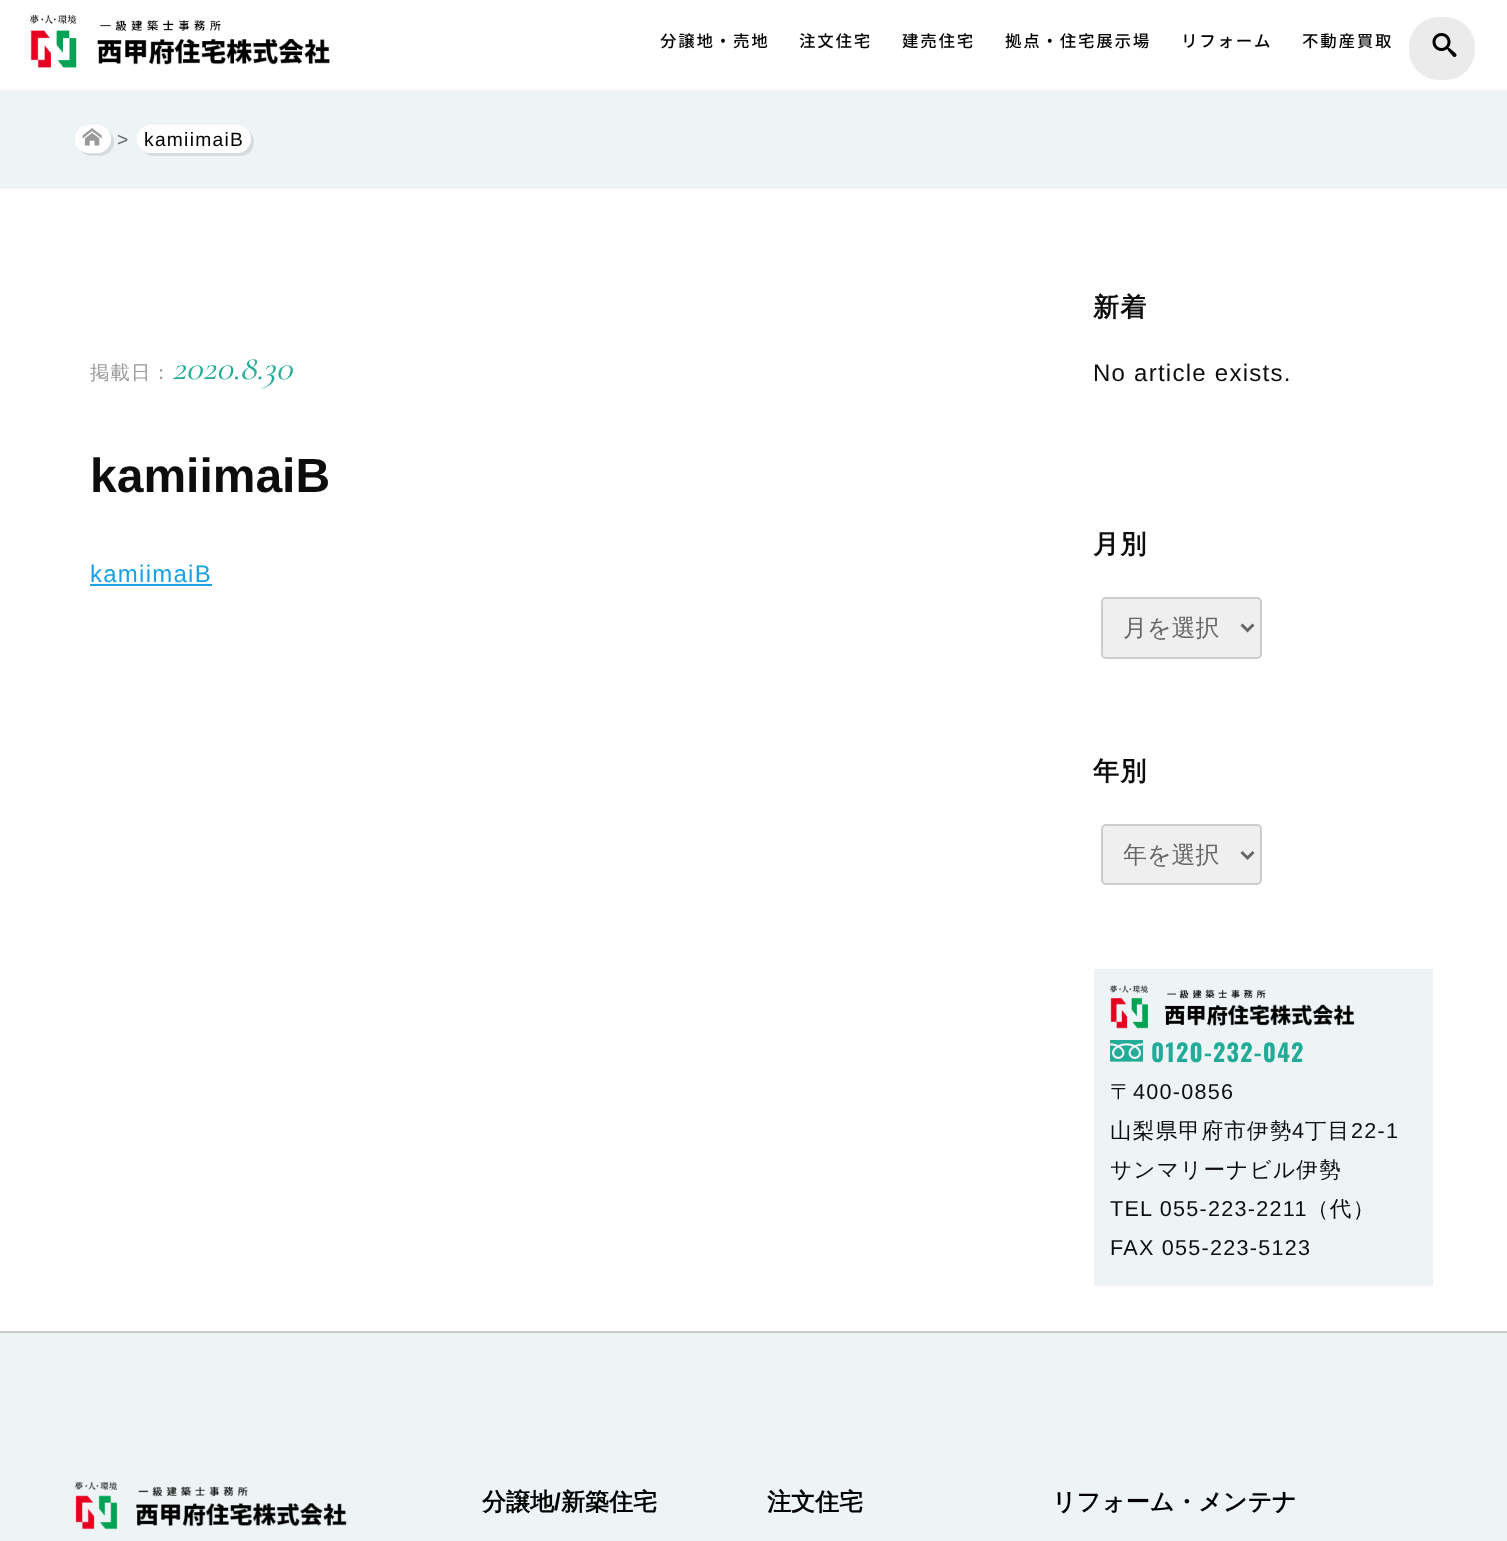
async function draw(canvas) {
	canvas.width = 1507;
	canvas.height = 1541;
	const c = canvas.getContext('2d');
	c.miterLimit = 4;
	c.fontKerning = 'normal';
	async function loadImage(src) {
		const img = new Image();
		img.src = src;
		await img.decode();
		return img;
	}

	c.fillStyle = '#fff';
	c.fillRect(0, 0, 1507, 1541);
	c.drawImage(await loadImage('img1.png'), 30, 15, 300, 53);
	c.letterSpacing = '1.75px';
	c.font = '500 16.5px Noto Sans JP';
	c.fillStyle = '#000';
	for (const [text, x, y] of [
		['分譲地・売地', 660, 47],
		['注文住宅', 799, 47],
		['建売住宅', 902, 47],
		['拠点・住宅展示場', 1005, 47],
		['リフォーム', 1181, 47],
		['不動産買取', 1302, 47],
	]) {
		c.fillText(text, x, y);
	}
	c.fillStyle = '#ebebeb';
	c.beginPath();
	c.roundRect(1409, 17, 66, 63, 30);
	c.fill();
	c.drawImage(await loadImage('img2.png'), 1432, 33, 25, 24);
	c.fillStyle = '#eef4f6';
	c.fillRect(0, 90, 1507, 99);
	c.fillStyle = '#d6dcdd';
	c.beginPath();
	c.moveTo(80.5, 150);
	c.bezierCurveTo(83, 153.5, 87, 156, 92, 156);
	c.lineTo(100, 156);
	c.bezierCurveTo(107.5, 156, 114, 149.5, 114, 142);
	c.bezierCurveTo(114, 137.5, 112, 133.5, 109, 131);
	c.bezierCurveTo(113.5, 138.5, 110.5, 148.5, 102.5, 152);
	c.bezierCurveTo(99, 153.5, 89.5, 153.5, 85.5, 152.5);
	c.bezierCurveTo(84, 152, 82, 151, 80.5, 150);
	c.closePath();
	c.fill();
	c.fillStyle = '#fff';
	c.beginPath();
	c.roundRect(75, 125, 36, 28, 14);
	c.fill();
	c.drawImage(await loadImage('img3.png'), 82, 128, 20, 18);
	c.letterSpacing = '1.25px';
	c.font = '19.25px Liberation Sans';
	c.fillStyle = '#666';
	c.fillText('>', 117, 146);
	c.fillStyle = '#d6dcdd';
	c.beginPath();
	c.moveTo(143, 151);
	c.bezierCurveTo(146, 154, 150, 156, 154, 156);
	c.lineTo(240, 156);
	c.bezierCurveTo(248, 156, 254, 150, 254, 142);
	c.bezierCurveTo(254, 137, 252, 133, 248, 130);
	c.bezierCurveTo(249, 133, 250, 136, 250, 139);
	c.bezierCurveTo(250, 147, 244, 153, 236, 153);
	c.lineTo(151, 153);
	c.bezierCurveTo(148, 153, 145, 152, 143, 151);
	c.closePath();
	c.fill();
	c.fillStyle = '#fff';
	c.beginPath();
	c.roundRect(137, 125, 114, 28, 14);
	c.fill();
	c.fillStyle = '#000';
	c.fillText('kamiimaiB', 144, 146);
	c.font = '500 19.25px WenQuanYi Zen Hei';
	c.fillStyle = '#999';
	c.fillText('掲載日：', 90, 379);
	c.letterSpacing = '0px';
	c.font = 'italic 34.5px Cormorant Garamond';
	c.fillStyle = '#22ac98';
	c.fillText('2020.8.30', 172, 379);
	c.font = 'bold 48px Liberation Sans';
	c.fillStyle = '#0d0d0d';
	c.fillText('kamiimaiB', 90, 492);
	c.letterSpacing = '1.25px';
	c.font = '24px Liberation Sans';
	c.fillStyle = '#1ba1e6';
	c.fillText('kamiimaiB', 90, 582);
	c.fillRect(90, 584, 122, 2);
	c.font = 'bold 26px WenQuanYi Zen Hei';
	c.fillStyle = '#0d0d0d';
	c.fillText('新着', 1093, 316);
	c.font = '24px Liberation Sans';
	c.fillText('No article exists.', 1093, 381);
	c.font = 'bold 26px WenQuanYi Zen Hei';
	c.fillText('月別', 1093, 553);
	c.fillStyle = '#efefef';
	c.beginPath();
	c.roundRect(1102, 598, 159, 60, 4);
	c.fill();
	c.strokeStyle = '#ccc';
	c.lineWidth = 2;
	c.stroke();
	c.beginPath();
	c.moveTo(1241.5, 624.5);
	c.lineTo(1247.5, 630.5);
	c.lineTo(1253.5, 624.5);
	c.strokeStyle = '#666';
	c.lineWidth = 3;
	c.stroke();
	c.letterSpacing = '0px';
	c.font = '500 24px WenQuanYi Zen Hei';
	c.fillStyle = '#666';
	c.fillText('月を選択', 1123, 636);
	c.letterSpacing = '1.25px';
	c.font = 'bold 26px WenQuanYi Zen Hei';
	c.fillStyle = '#0d0d0d';
	c.fillText('年別', 1093, 780);
	c.fillStyle = '#efefef';
	c.beginPath();
	c.roundRect(1102, 825, 159, 59, 4);
	c.fill();
	c.strokeStyle = '#ccc';
	c.lineWidth = 2;
	c.stroke();
	c.beginPath();
	c.moveTo(1241.5, 852);
	c.lineTo(1247.5, 858);
	c.lineTo(1253.5, 852);
	c.strokeStyle = '#666';
	c.lineWidth = 3;
	c.stroke();
	c.save();
	c.beginPath();
	c.rect(1124, 840, 97, 29);
	c.clip();
	c.letterSpacing = '0px';
	c.font = '500 24px WenQuanYi Zen Hei';
	c.fillStyle = '#666';
	c.fillText('年を選択', 1123, 863);
	c.restore();
	c.fillStyle = '#eef4f6';
	c.fillRect(1094, 969, 339, 317);
	c.drawImage(await loadImage('img4.png'), 1109, 985, 246, 44);
	c.drawImage(await loadImage('img5.png'), 1110, 1040, 33, 22);
	c.font = 'bold 24px Oswald';
	c.fillStyle = '#22ac98';
	c.fillText('0120-232-042', 1151, 1062);
	c.font = '500 21.6px WenQuanYi Zen Hei';
	c.fillStyle = '#0d0d0d';
	c.fillText('〒', 1110, 1099);
	c.font = '21.6px Liberation Sans';
	c.fillText('400-0856', 1133, 1099);
	c.font = '500 21.6px WenQuanYi Zen Hei';
	c.fillText('山梨県甲府市伊勢', 1110, 1138);
	c.font = '21.6px Liberation Sans';
	c.fillText('4', 1292, 1138);
	c.font = '500 21.6px WenQuanYi Zen Hei';
	c.fillText('丁目', 1305, 1138);
	c.font = '21.6px Liberation Sans';
	c.fillText('22-1', 1351, 1138);
	c.font = '500 21.6px WenQuanYi Zen Hei';
	c.fillText('サンマリーナビル伊勢', 1110, 1177);
	c.font = '21.6px Liberation Sans';
	c.fillText('TEL 055-223-2211', 1110, 1216);
	c.font = '500 21.6px WenQuanYi Zen Hei';
	c.fillText('（代）', 1307, 1216);
	c.font = '21.6px Liberation Sans';
	c.fillText('FAX 055-223-5123', 1110, 1255);
	c.fillStyle = '#eef4f6';
	c.fillRect(0, 1333, 1507, 208);
	c.fillStyle = '#ccc';
	c.fillRect(0, 1331, 1507, 2);
	c.drawImage(await loadImage('img6.png'), 75, 1482, 272, 48);
	c.letterSpacing = '0px';
	c.font = 'bold 24px WenQuanYi Zen Hei';
	c.fillStyle = '#000';
	c.fillText('分譲地', 482, 1510);
	c.font = 'bold 24px Liberation Sans';
	c.fillText('/', 554, 1510);
	c.font = 'bold 24px WenQuanYi Zen Hei';
	for (const [text, x, y] of [
		['新築住宅', 561, 1510],
		['注文住宅', 767, 1510],
		['リフォーム・メンテナ', 1052, 1510],
	]) {
		c.fillText(text, x, y);
	}
}

draw(document.querySelector('canvas'));
